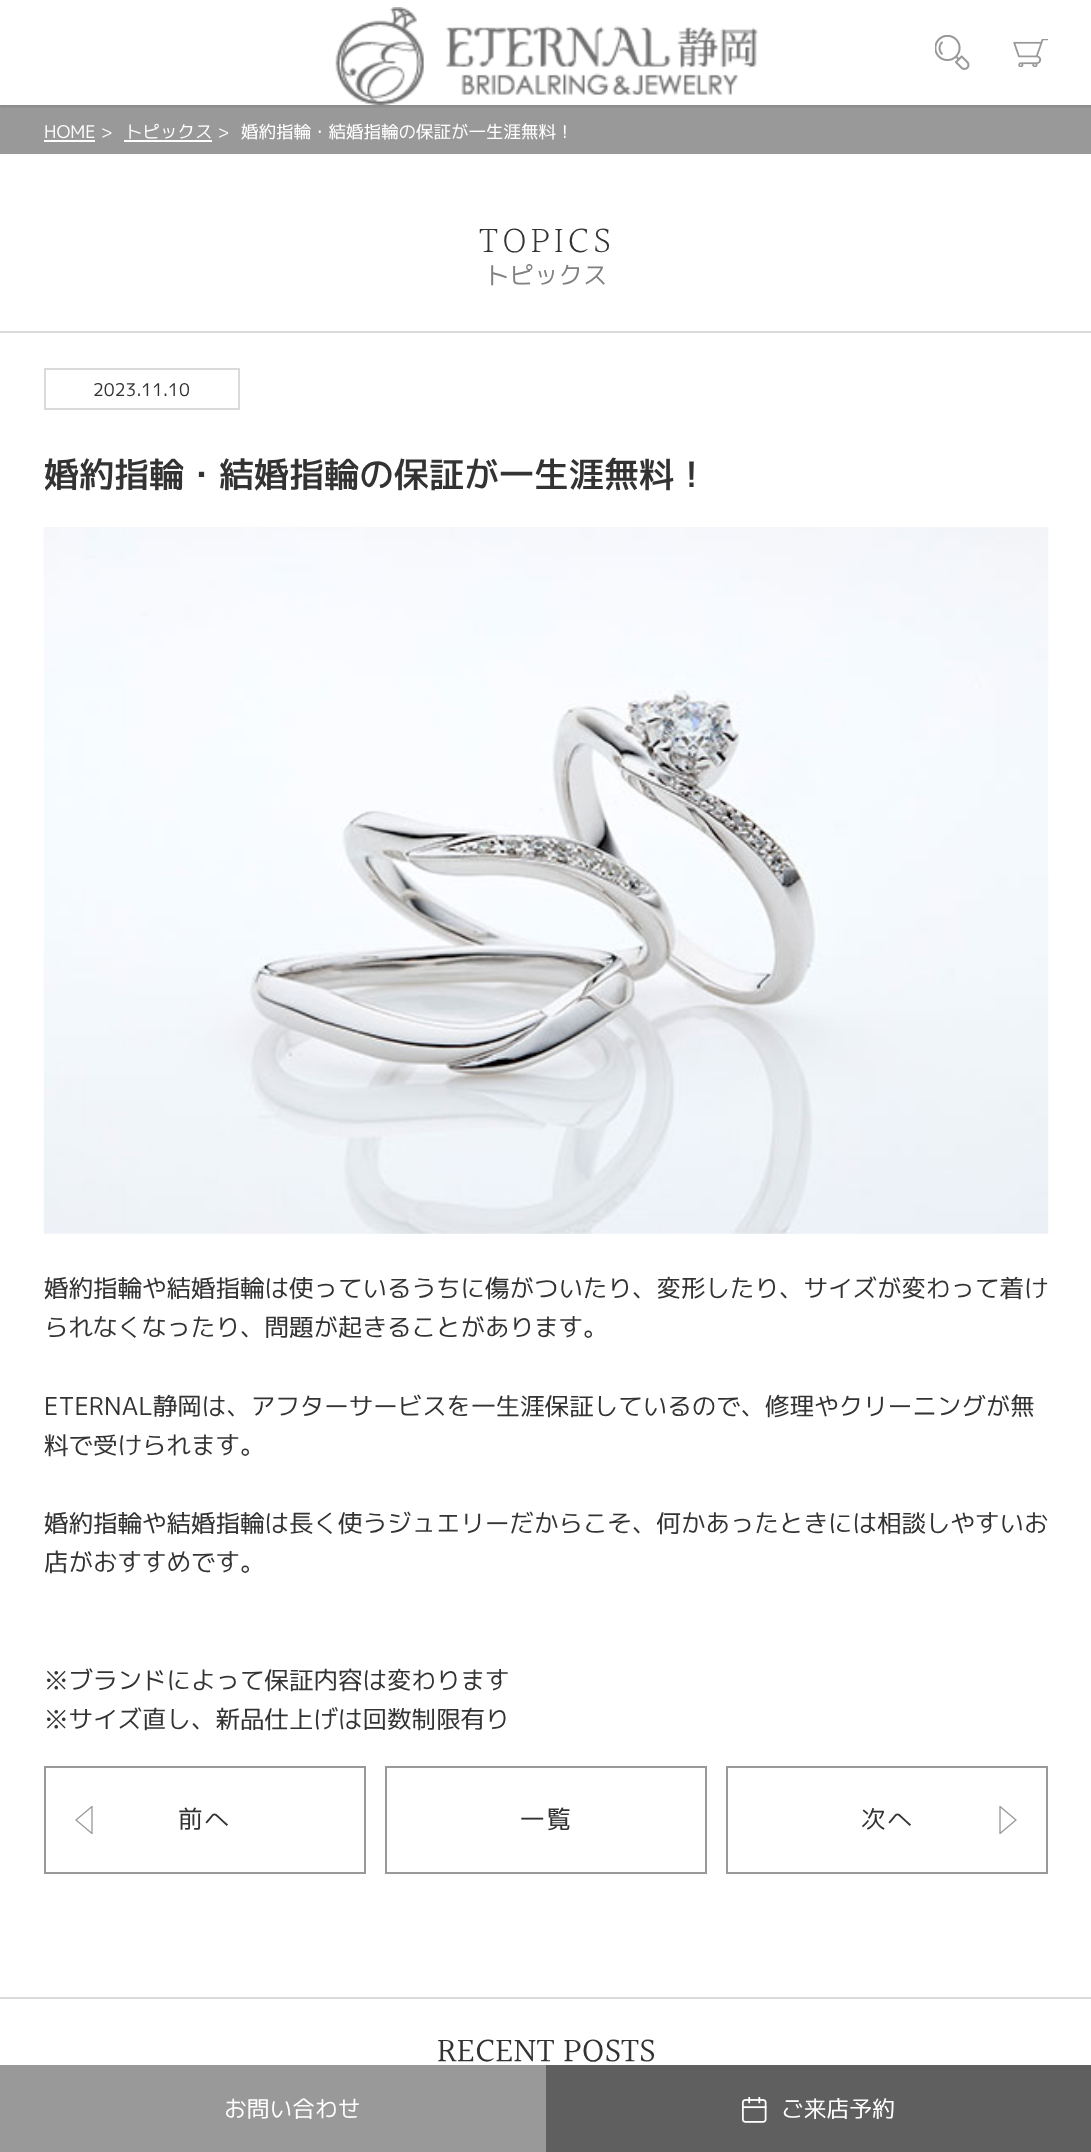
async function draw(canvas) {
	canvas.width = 1091;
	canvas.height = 2152;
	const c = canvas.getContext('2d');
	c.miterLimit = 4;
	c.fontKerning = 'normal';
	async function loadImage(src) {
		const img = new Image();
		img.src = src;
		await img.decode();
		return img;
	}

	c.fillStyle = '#fff';
	c.fillRect(0, 0, 1091, 2152);
	c.fillStyle = '#999';
	c.fillRect(0, 105, 1091, 49);
	c.save();
	c.beginPath();
	c.rect(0, 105, 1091, 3);
	c.clip();
	c.fillStyle = '#0000001a';
	c.filter = 'blur(1px)';
	c.beginPath();
	c.rect(0, 2, 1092, 105);
	c.fill();
	c.filter = 'none';
	c.restore();
	c.drawImage(await loadImage('img1.png'), 335, 7, 423, 98);
	c.drawImage(await loadImage('img2.png'), 935, 35, 35, 35);
	c.drawImage(await loadImage('img3.png'), 1013, 39, 35, 28);
	c.font = '17.5px "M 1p"';
	c.fillStyle = '#fff';
	c.fillText('HOME >', 44, 138);
	c.fillRect(44, 140, 51, 2);
	c.fillText('トピックス >', 125, 138);
	c.fillRect(124, 140, 88, 2);
	c.fillText('婚約指輪・結婚指輪の保証が一生涯無料！', 241, 138);
	c.letterSpacing = '4px';
	c.font = '300 38.5px Halant';
	c.fillStyle = '#333';
	c.fillText('TOPICS', 479, 254);
	c.letterSpacing = '0px';
	c.font = '24.5px "M 1p"';
	c.fillStyle = '#808080';
	c.fillText('トピックス', 485, 284);
	c.fillStyle = '#dadada';
	c.fillRect(0, 331, 1091, 2);
	c.strokeStyle = '#dadada';
	c.lineWidth = 2;
	c.strokeRect(45, 369, 194, 40);
	c.font = '17.5px "M 1p"';
	c.fillStyle = '#333';
	c.fillText('2023.11.10', 93, 396);
	c.font = '500 35px "M 1p"';
	c.fillText('婚約指輪・結婚指輪の保証が一生涯無料！', 44, 487);
	c.drawImage(await loadImage('img4.png'), 43, 527, 1006, 707);
	c.font = '24.5px "M 1p"';
	for (const [text, x, y] of [
		['婚約指輪や結婚指輪は使っているうちに傷がついたり、変形したり、サイズが変わって着け', 44, 1297],
		['られなくなったり、問題が起きることがあります。', 44, 1336],
		['ETERNAL静岡は、アフターサービスを一生涯保証しているので、修理やクリーニングが無', 44, 1415],
		['料で受けられます。', 44, 1454],
		['婚約指輪や結婚指輪は長く使うジュエリーだからこそ、何かあったときには相談しやすいお', 44, 1532],
		['店がおすすめです。', 44, 1571],
		['※ブランドによって保証内容は変わります', 44, 1689],
		['※サイズ直し、新品仕上げは回数制限有り', 44, 1728],
	]) {
		c.fillText(text, x, y);
	}
	c.save();
	c.beginPath();
	c.rect(75, 1806, 18, 28);
	c.clip();
	c.beginPath();
	c.moveTo(92, 1833.5);
	c.lineTo(76, 1820);
	c.lineTo(92, 1806.5);
	c.closePath();
	c.strokeStyle = '#999';
	c.lineWidth = 1.3;
	c.stroke();
	c.restore();
	c.strokeStyle = '#999';
	c.strokeRect(45, 1767, 320, 106);
	c.letterSpacing = '2px';
	c.fillText('前へ', 178, 1828);
	c.strokeRect(386, 1767, 320, 106);
	c.fillText('一覧', 520, 1828);
	c.save();
	c.beginPath();
	c.rect(999, 1806, 18, 28);
	c.clip();
	c.beginPath();
	c.moveTo(1000, 1833.5);
	c.lineTo(1016, 1820);
	c.lineTo(1000, 1806.5);
	c.closePath();
	c.lineWidth = 1.3;
	c.stroke();
	c.restore();
	c.strokeRect(727, 1767, 320, 106);
	c.fillText('次へ', 861, 1828);
	c.fillStyle = '#dadada';
	c.fillRect(0, 1997, 1091, 2);
	c.letterSpacing = '0px';
	c.font = '35px Halant';
	c.fillStyle = '#333';
	c.fillText('RECENT POSTS', 437, 2063);
	c.fillStyle = '#999';
	c.fillRect(0, 2065, 546, 87);
	c.font = '22.75px "M 1p"';
	c.fillStyle = '#fff';
	c.fillText('お問い合わせ', 224, 2117);
	c.fillStyle = '#5f5f5f';
	c.fillRect(546, 2065, 545, 87);
	c.drawImage(await loadImage('img5.png'), 742, 2097, 25, 26);
	c.fillStyle = '#fff';
	c.fillText('ご来店予約', 781, 2117);
}

draw(document.querySelector('canvas'));
